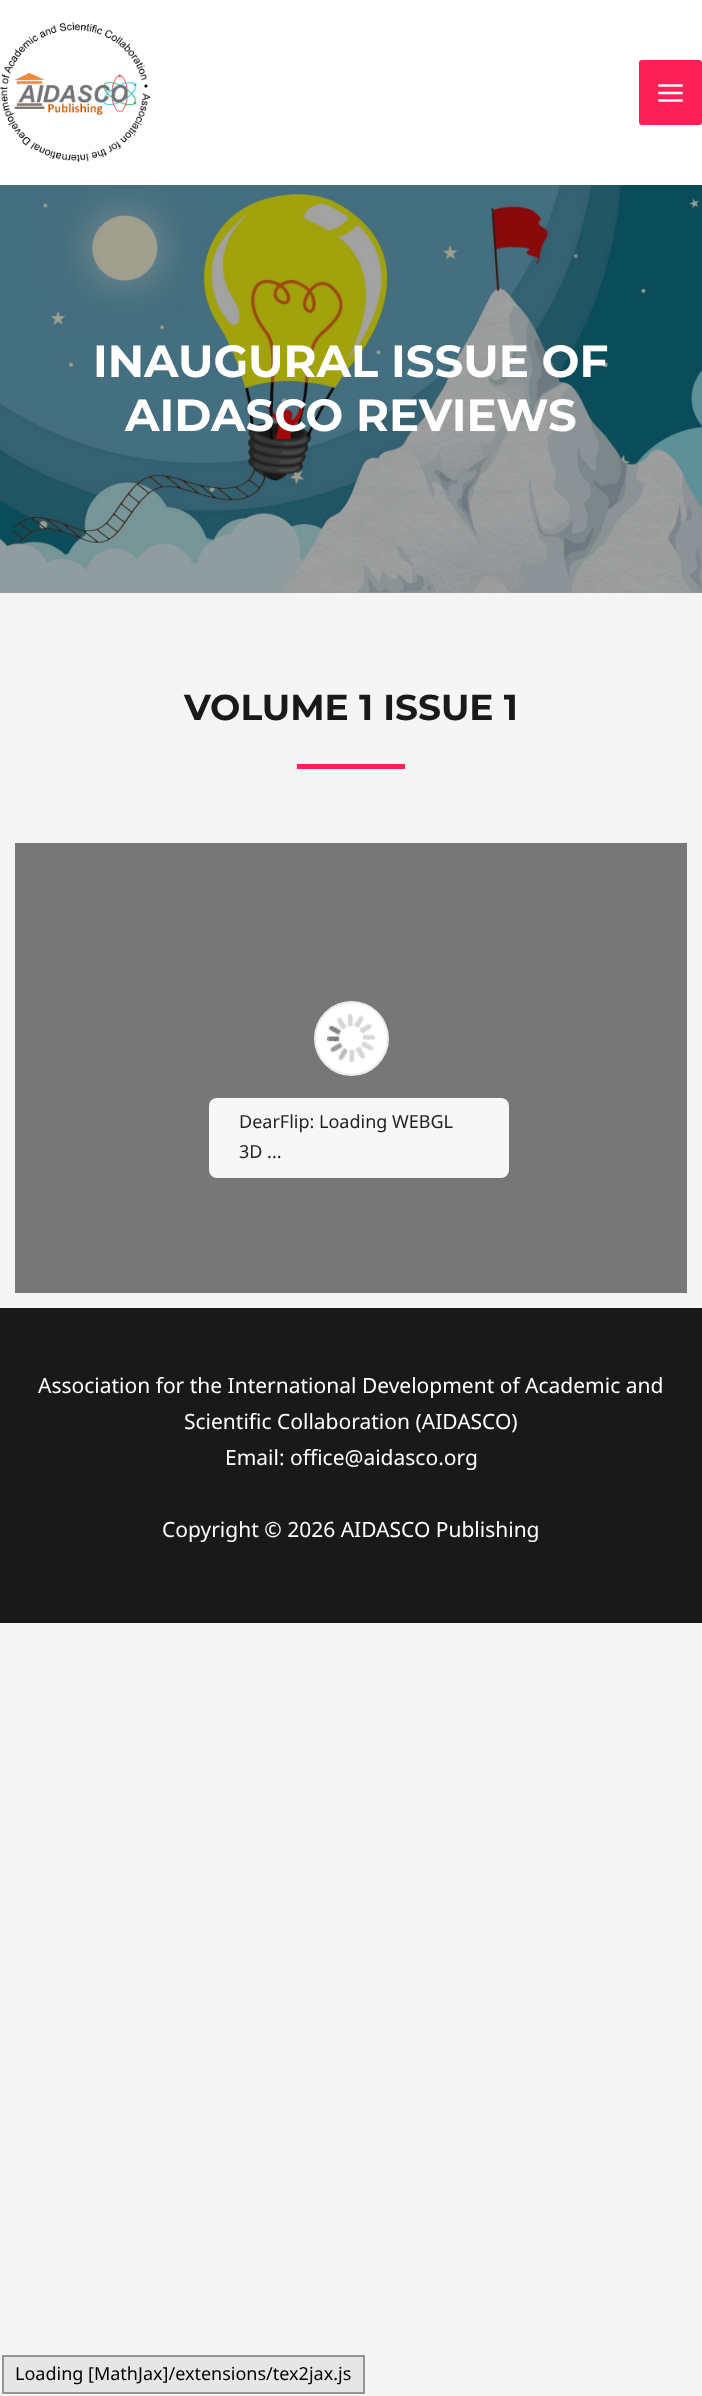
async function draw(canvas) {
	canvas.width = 702;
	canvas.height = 2396;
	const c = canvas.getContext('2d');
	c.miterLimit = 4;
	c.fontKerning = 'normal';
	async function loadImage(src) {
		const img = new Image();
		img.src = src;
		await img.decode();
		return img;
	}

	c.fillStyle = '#f5f5f5';
	c.fillRect(0, 0, 702, 2396);
	c.fillStyle = '#9d9d9d';
	c.fillRect(0, 592, 702, 1);
	c.fillStyle = '#fff';
	c.fillRect(0, 0, 702, 185);
	c.drawImage(await loadImage('img1.png'), 0, 22, 150, 140);
	c.fillStyle = '#fb2056';
	c.beginPath();
	c.roundRect(639, 60, 63, 65, 3);
	c.fill();
	c.drawImage(await loadImage('img2.png'), 658, 84, 25, 18);
	c.drawImage(await loadImage('img3.png'), 0, 185, 702, 408);
	c.font = '100 45px Montserrat';
	c.fillStyle = '#fff';
	c.fillText('INAUGURAL ISSUE OF', 93, 377);
	c.fillText('AIDASCO REVIEWS', 125, 431);
	c.font = '100 36px Montserrat';
	c.fillStyle = '#191919';
	c.fillText('VOLUME 1 ISSUE 1', 184, 720);
	c.fillStyle = '#fb2056';
	c.fillRect(297, 764, 108, 5);
	c.fillStyle = '#777';
	c.fillRect(15, 843, 672, 450);
	c.fillStyle = '#fff';
	c.beginPath();
	c.arc(351.5, 1038.5, 37.5, 0, 2 * Math.PI);
	c.fill();
	c.beginPath();
	c.arc(351.5, 1038.5, 36.5, 0, 2 * Math.PI);
	c.strokeStyle = '#96969633';
	c.lineWidth = 2;
	c.stroke();
	c.drawImage(await loadImage('img4.png'), 327, 1014, 48, 48);
	c.fillStyle = '#f7f7f7';
	c.beginPath();
	c.roundRect(209, 1098, 300, 80, 8);
	c.fill();
	c.font = '18px Noto Sans';
	c.fillStyle = '#222';
	c.fillText('DearFlip: Loading WEBGL', 239, 1128);
	c.fillText('3D ...', 239, 1158);
	c.fillStyle = '#191919';
	c.fillRect(0, 1308, 702, 315);
	c.font = '21px Noto Sans';
	c.fillStyle = '#fff';
	for (const [text, x, y] of [
		['Association for the International Development of Academic and', 38, 1393],
		['Scientific Collaboration (AIDASCO)', 184, 1429],
		['Email: office@aidasco.org', 225, 1465],
		['Copyright © 2026 AIDASCO Publishing', 162, 1537],
	]) {
		c.fillText(text, x, y);
	}
	c.fillStyle = '#e6e6e6';
	c.beginPath();
	c.rect(3, 2356, 361, 37);
	c.fill();
	c.strokeStyle = '#959595';
	c.stroke();
	c.font = '18px Noto Sans';
	c.fillStyle = '#000';
	c.fillText('Loading [MathJax]/extensions/tex2jax.js', 15, 2380);
}

draw(document.querySelector('canvas'));
